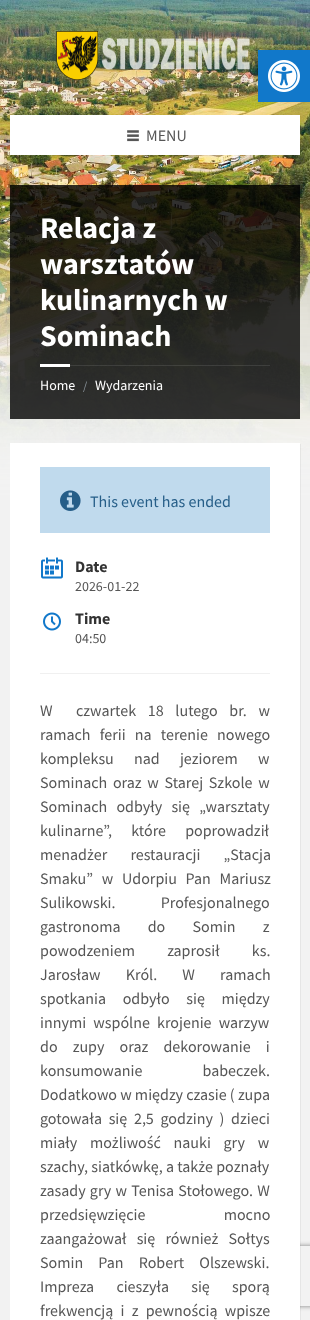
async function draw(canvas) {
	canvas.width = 310;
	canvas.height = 1320;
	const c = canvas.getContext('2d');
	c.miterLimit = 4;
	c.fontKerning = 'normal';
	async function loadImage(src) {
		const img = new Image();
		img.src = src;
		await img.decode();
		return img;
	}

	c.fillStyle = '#f2f2f2';
	c.fillRect(0, 0, 310, 1320);
	c.drawImage(await loadImage('img2.png'), 0, 0, 310, 500);
	c.drawImage(await loadImage('img3.png'), 56, 31, 194, 50);
	c.fillStyle = '#fff';
	c.fillRect(10, 115, 290, 40);
	c.fillStyle = '#0000001a';
	c.filter = 'blur(5px)';
	c.beginPath();
	c.rect(258, 50, 52, 52);
	c.fill();
	c.filter = 'none';
	c.fillStyle = '#1178ca';
	c.fillRect(258, 50, 52, 52);
	c.drawImage(await loadImage('img1.png'), 268, 60, 32, 32);
	c.drawImage(await loadImage('img4.png'), 127, 130, 12, 12);
	c.font = '16px Source Sans Pro';
	c.fillStyle = '#565656';
	c.fillText('MENU', 146, 141);
	c.fillStyle = '#000000cc';
	c.fillRect(10, 185, 290, 234);
	c.font = 'bold 30px Source Sans Pro';
	c.fillStyle = '#fff';
	for (const [text, x, y] of [
		['Relacja z', 40, 238],
		['warsztatów', 40, 274],
		['kulinarnych w', 40, 310],
		['Sominach', 40, 346],
	]) {
		c.fillText(text, x, y);
	}
	c.fillStyle = '#ffffff1a';
	c.fillRect(70, 365, 200, 1);
	c.fillStyle = '#fff';
	c.fillRect(40, 364, 30, 3);
	c.font = '14px Source Sans Pro';
	c.fillText('Home', 40, 390);
	c.font = '12px Source Sans Pro';
	c.fillStyle = '#8a949b';
	c.fillText('/', 83, 390);
	c.font = '14px Source Sans Pro';
	c.fillStyle = '#fff';
	c.fillText('Wydarzenia', 95, 390);
	c.save();
	c.beginPath();
	c.moveTo(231, 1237);
	c.lineTo(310, 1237);
	c.lineTo(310, 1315);
	c.lineTo(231, 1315);
	c.closePath();
	c.moveTo(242, 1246);
	c.lineTo(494, 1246);
	c.bezierCurveTo(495, 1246, 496, 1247, 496, 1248);
	c.lineTo(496, 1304);
	c.bezierCurveTo(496, 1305, 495, 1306, 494, 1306);
	c.lineTo(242, 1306);
	c.bezierCurveTo(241, 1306, 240, 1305, 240, 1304);
	c.lineTo(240, 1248);
	c.bezierCurveTo(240, 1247, 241, 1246, 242, 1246);
	c.closePath();
	c.clip('evenodd');
	c.fillStyle = '#808080';
	c.filter = 'blur(2.5px)';
	c.beginPath();
	c.roundRect(240, 1246, 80, 60, 2);
	c.fill();
	c.filter = 'none';
	c.restore();
	c.fillStyle = '#0000000d';
	c.beginPath();
	c.moveTo(11, 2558);
	c.lineTo(11, 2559);
	c.lineTo(301, 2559);
	c.lineTo(301, 444);
	c.lineTo(300, 444);
	c.lineTo(300, 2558);
	c.closePath();
	c.fill();
	c.fillStyle = '#fff';
	c.fillRect(10, 443, 290, 877);
	c.fillStyle = '#c0daed';
	c.fillRect(40, 467, 230, 66);
	c.drawImage(await loadImage('img5.png'), 60, 490, 21, 21);
	c.font = '16px Source Sans Pro';
	c.fillStyle = '#265e88';
	c.fillText('This event has ended', 90, 507);
	c.drawImage(await loadImage('img6.png'), 41, 557, 22, 22);
	c.font = 'bold 16px Source Sans Pro';
	c.fillStyle = '#333';
	c.fillText('Date', 75, 572);
	c.font = '14px Source Sans Pro';
	c.fillStyle = '#565656';
	c.fillText('2026-01-22', 75, 591);
	c.drawImage(await loadImage('img7.png'), 43, 612, 18, 19);
	c.font = 'bold 16px Source Sans Pro';
	c.fillStyle = '#333';
	c.fillText('Time', 75, 624);
	c.font = '14px Source Sans Pro';
	c.fillStyle = '#565656';
	c.fillText('04:50', 75, 643);
	c.fillStyle = '#f0f0f0';
	c.fillRect(40, 673, 230, 1);
	c.wordSpacing = '8.5px';
	c.font = '16px Source Sans Pro';
	c.fillStyle = '#565656';
	c.fillText('W  czwartek 18 lutego br. w', 40, 716);
	c.wordSpacing = '6px';
	c.fillText('ramach ferii na terenie nowego', 40, 740);
	c.wordSpacing = '17px';
	c.fillText('kompleksu nad jeziorem w', 40, 764);
	c.wordSpacing = '2.5px';
	c.fillText('Sominach oraz w Starej Szkole w', 40, 788);
	c.wordSpacing = '6px';
	c.fillText('Sominach odbyły się „warsztaty', 40, 812);
	c.wordSpacing = '16px';
	c.fillText('kulinarne”, które poprowadził', 40, 836);
	c.wordSpacing = '20px';
	c.fillText('menadżer restauracji „Stacja', 40, 860);
	c.wordSpacing = '5.5px';
	c.fillText('Smaku” w Udorpiu Pan Mariusz', 40, 884);
	c.wordSpacing = '42px';
	c.fillText('Sulikowski. Profesjonalnego', 40, 908);
	c.wordSpacing = '24px';
	c.fillText('gastronoma do Somin z', 40, 932);
	c.wordSpacing = '29px';
	c.fillText('powodzeniem zaprosił ks.', 40, 956);
	c.wordSpacing = '22px';
	c.fillText('Jarosław Król. W ramach', 40, 980);
	c.wordSpacing = '13.5px';
	c.fillText('spotkania odbyło się między', 40, 1004);
	c.wordSpacing = '4px';
	c.fillText('innymi wspólne krojenie warzyw', 40, 1028);
	c.wordSpacing = '12px';
	c.fillText('do zupy oraz dekorowanie i', 40, 1052);
	c.wordSpacing = '57px';
	c.fillText('konsumowanie babeczek.', 40, 1076);
	c.wordSpacing = '0px';
	c.fillText('Dodatkowo w między czasie ( zupa', 40, 1100);
	c.wordSpacing = '3.5px';
	c.fillText('gotowała się 2,5 godziny ) dzieci', 40, 1124);
	c.wordSpacing = '9.5px';
	c.fillText('miały możliwość nauki gry w', 40, 1148);
	c.wordSpacing = '0px';
	c.fillText('szachy, siatkówkę, a także poznały', 40, 1172);
	c.wordSpacing = '1px';
	c.fillText('zasady gry w Tenisa Stołowego. W', 40, 1196);
	c.wordSpacing = '75px';
	c.fillText('przedsięwzięcie mocno', 40, 1220);
	c.wordSpacing = '7px';
	c.fillText('zaangażował się również Sołtys', 40, 1244);
	c.wordSpacing = '12px';
	c.fillText('Somin Pan Robert Olszewski.', 40, 1268);
	c.wordSpacing = '19px';
	c.fillText('Impreza cieszyła się sporą', 40, 1292);
	c.wordSpacing = '4px';
	c.fillText('frekwencją i z pewnością wpisze', 40, 1316);
}

draw(document.querySelector('canvas'));
